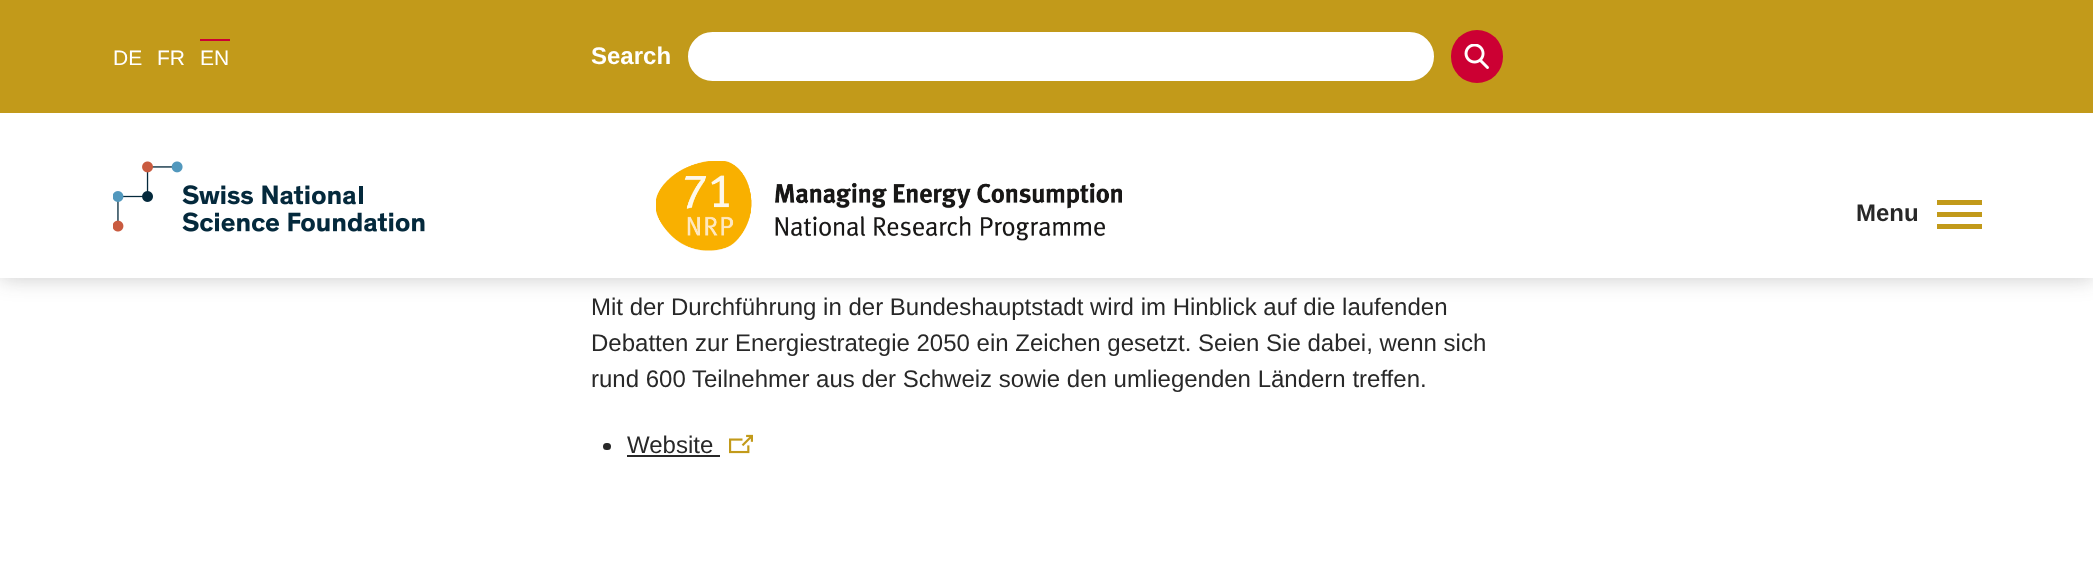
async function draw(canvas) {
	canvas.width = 2093;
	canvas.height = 573;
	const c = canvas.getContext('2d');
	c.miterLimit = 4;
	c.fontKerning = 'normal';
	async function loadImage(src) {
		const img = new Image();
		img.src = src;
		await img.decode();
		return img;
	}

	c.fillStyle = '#fff';
	c.fillRect(0, 0, 2093, 573);
	c.fillStyle = '#28282840';
	c.filter = 'blur(11px)';
	c.beginPath();
	c.rect(0, 0, 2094, 278);
	c.fill();
	c.filter = 'none';
	c.fillStyle = '#c29a1a';
	c.fillRect(0, 0, 2093, 113);
	c.font = '21px Liberation Sans';
	c.fillStyle = '#fff';
	c.fillText('DE', 113, 65);
	c.fillText('FR', 157, 65);
	c.fillStyle = '#c03';
	c.fillRect(200, 39, 30, 2);
	c.fillStyle = '#fff';
	c.fillText('EN', 200, 65);
	c.font = 'bold 24px Liberation Sans';
	c.fillText('Search', 591, 64);
	c.beginPath();
	c.roundRect(687, 31, 748, 51, 25.5);
	c.fill();
	c.strokeStyle = '#c29a1a';
	c.lineWidth = 2;
	c.stroke();
	c.fillStyle = '#c03';
	c.beginPath();
	c.roundRect(1451, 30, 52, 53, 26);
	c.fill();
	c.drawImage(await loadImage('img1.png'), 1464, 44, 25, 25);
	c.fillStyle = '#fff';
	c.fillRect(0, 113, 2093, 165);
	c.drawImage(await loadImage('img2.png'), 113, 161, 312, 71);
	c.drawImage(await loadImage('img3.png'), 656, 161, 466, 90);
	c.fillStyle = '#282828';
	c.fillText('Menu', 1856, 221);
	for (const [x, y, w, h, color] of [
		[1937, 212, 45, 5, '#c29a1a'],
		[1937, 200, 45, 5, '#c29a1a'],
		[1937, 224, 45, 5, '#c29a1a'],
	]) {
		c.fillStyle = color;
		c.fillRect(x, y, w, h);
	}
	c.font = '24px Liberation Sans';
	c.fillStyle = '#282828';
	for (const [text, x, y] of [
		['Mit der Durchführung in der Bundeshauptstadt wird im Hinblick auf die laufenden', 591, 315],
		['Debatten zur Energiestrategie 2050 ein Zeichen gesetzt. Seien Sie dabei, wenn sich', 591, 351],
		['rund 600 Teilnehmer aus der Schweiz sowie den umliegenden Ländern treffen.', 591, 387],
	]) {
		c.fillText(text, x, y);
	}
	c.beginPath();
	c.roundRect(603, 443, 8, 7, 3.5);
	c.fill();
	c.fillText('Website', 627, 453);
	c.fillRect(627, 455, 93, 2);
	c.drawImage(await loadImage('img4.png'), 729, 434, 24, 20);
}

draw(document.querySelector('canvas'));
